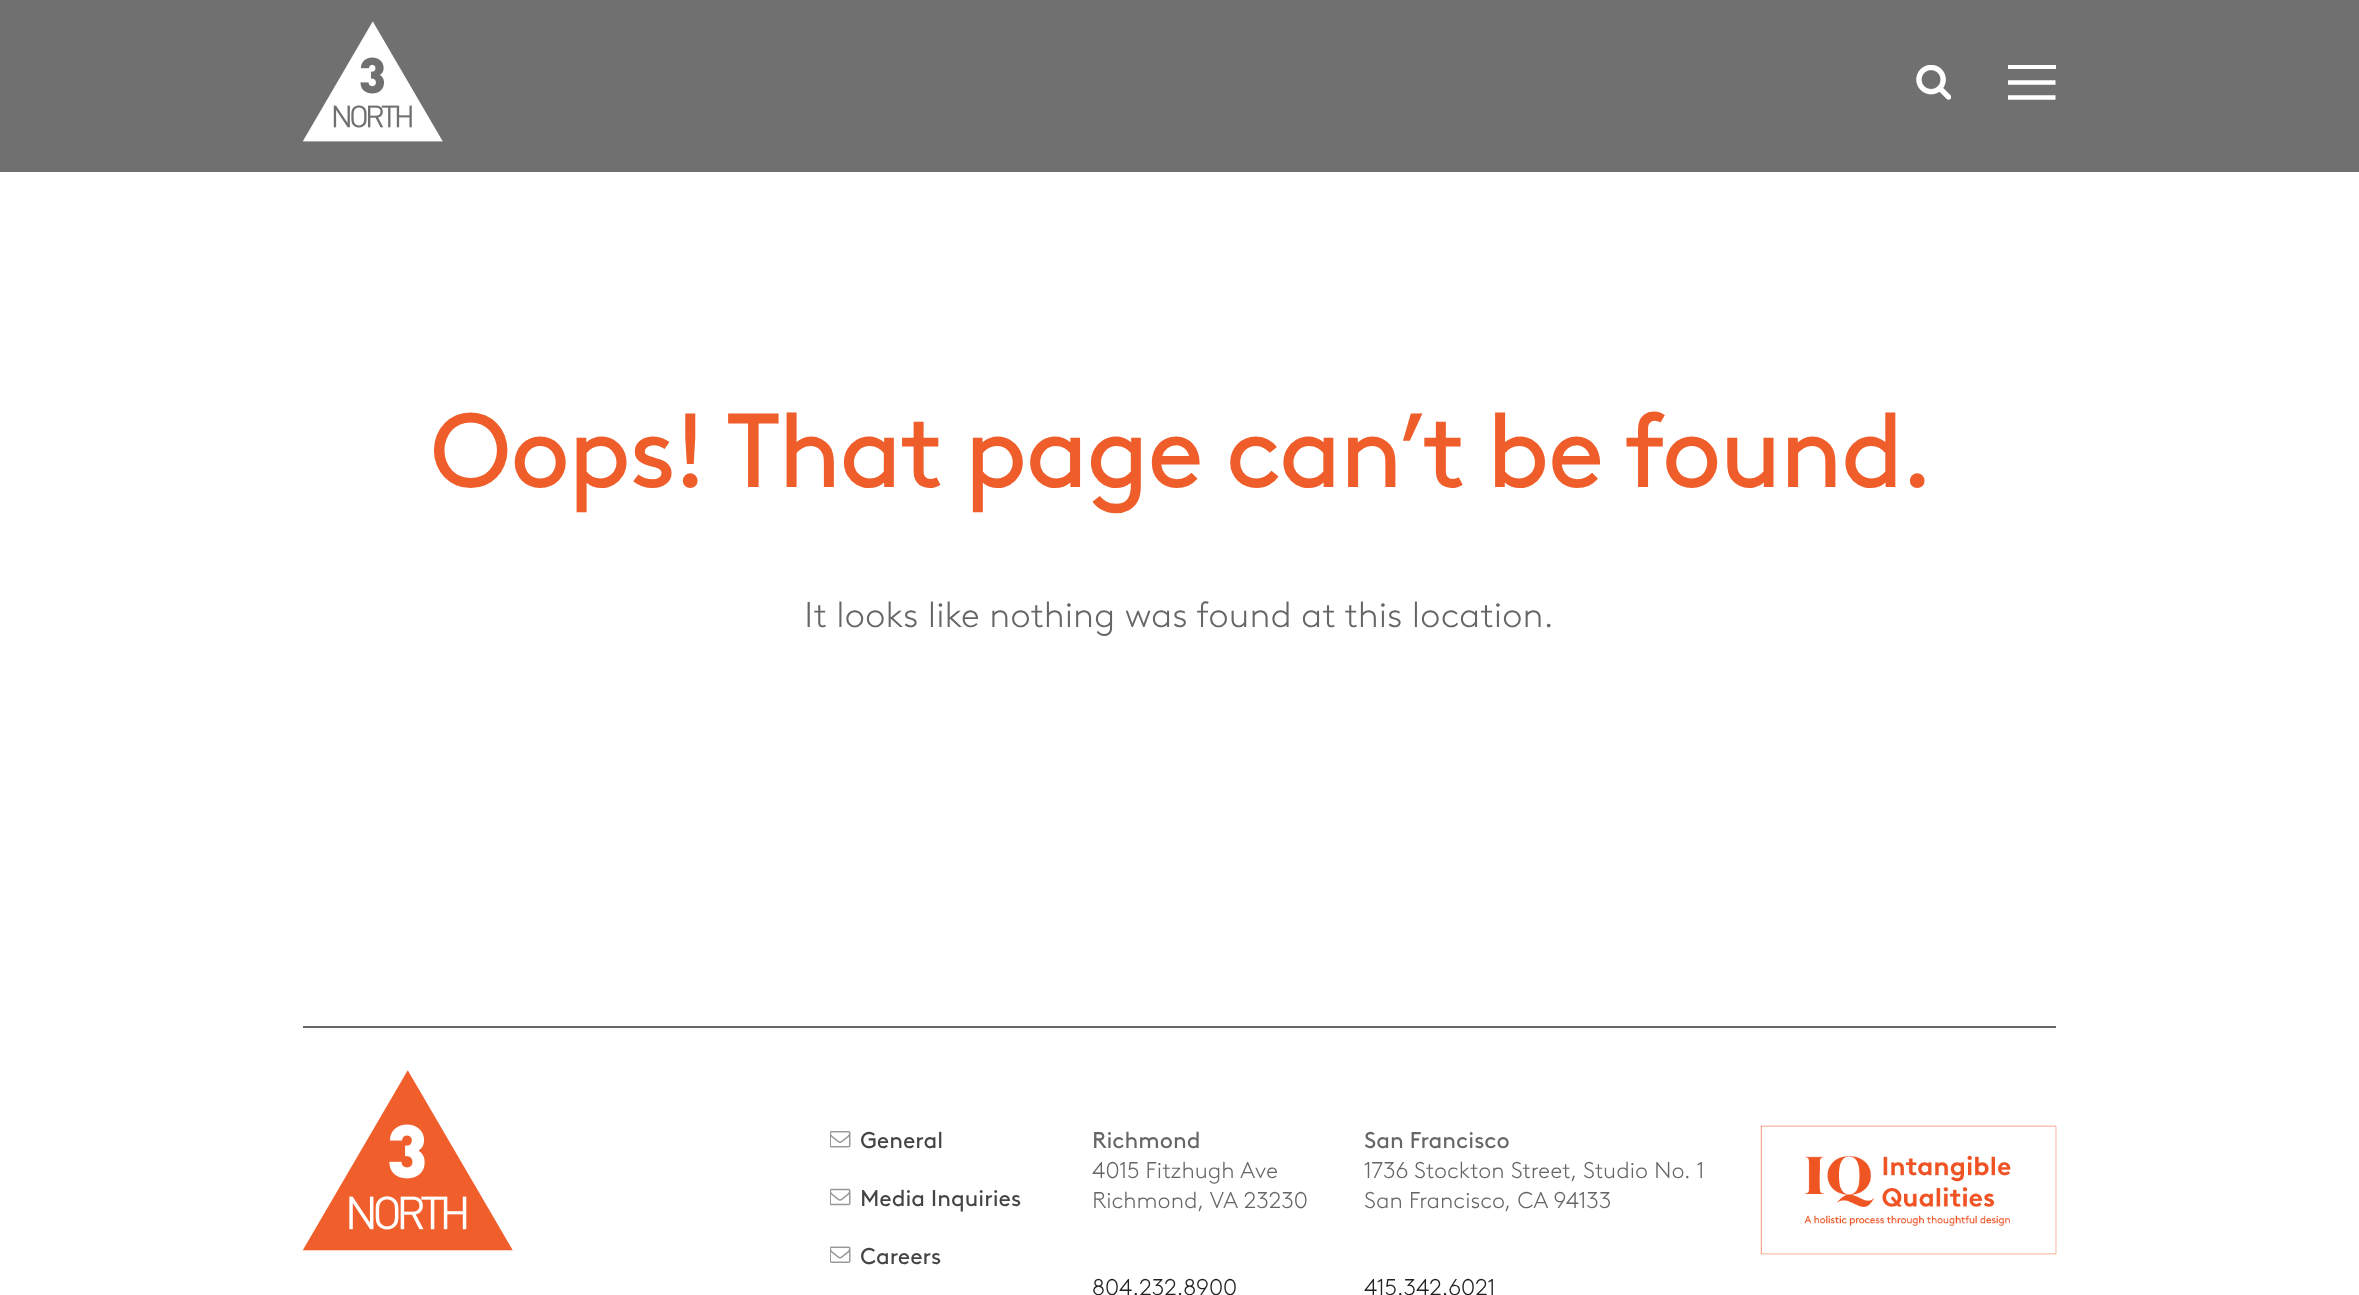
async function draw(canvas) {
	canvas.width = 2359;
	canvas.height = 1295;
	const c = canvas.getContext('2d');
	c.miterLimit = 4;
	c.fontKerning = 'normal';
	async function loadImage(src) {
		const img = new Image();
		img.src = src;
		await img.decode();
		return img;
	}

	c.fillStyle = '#fff';
	c.fillRect(0, 0, 2359, 1295);
	c.fillStyle = '#707070';
	c.fillRect(0, 0, 2359, 172);
	c.drawImage(await loadImage('img1.png'), 303, 21, 140, 121);
	c.drawImage(await loadImage('img2.png'), 1916, 65, 35, 35);
	c.fillStyle = '#fff';
	c.fillRect(2008, 65, 48, 4);
	c.beginPath();
	c.moveTo(2008, 97.5);
	c.lineTo(2055.5, 97.5);
	c.moveTo(2008, 82.5);
	c.lineTo(2055.5, 82.5);
	c.strokeStyle = '#fff';
	c.lineWidth = 4.3;
	c.stroke();
	c.letterSpacing = '-2.6px';
	c.font = '105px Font';
	c.fillStyle = '#ef5d2b';
	c.fillText('Oops! That page can’t be found.', 429, 487);
	c.letterSpacing = '0px';
	c.font = '300 35.8px Font';
	c.fillStyle = '#666';
	c.fillText('It looks like nothing was found at this location.', 804, 627);
	c.fillRect(303, 1026, 1753, 2);
	c.drawImage(await loadImage('img3.png'), 303, 1070, 210, 181);
	c.drawImage(await loadImage('img4.png'), 830, 1131, 21, 17);
	c.font = '22.75px Font';
	c.fillStyle = '#444';
	c.fillText('General', 860, 1148);
	c.drawImage(await loadImage('img5.png'), 830, 1188, 21, 18);
	c.fillText('Media Inquiries', 860, 1206);
	c.drawImage(await loadImage('img6.png'), 830, 1246, 21, 17);
	c.fillText('Careers', 860, 1264);
	c.fillStyle = '#666';
	c.fillText('Richmond', 1092, 1148);
	c.font = '300 22.75px Font';
	c.fillText('4015 Fitzhugh Ave', 1092, 1178);
	c.fillText('Richmond, VA 23230', 1092, 1208);
	c.fillStyle = '#222';
	c.fillText('804.232.8900', 1092, 1295);
	c.font = '22.75px Font';
	c.fillStyle = '#666';
	c.fillText('San Francisco', 1364, 1148);
	c.font = '300 22.75px Font';
	c.fillText('1736 Stockton Street, Studio No. 1', 1364, 1178);
	c.fillText('San Francisco, CA 94133', 1364, 1208);
	c.fillStyle = '#222';
	c.fillText('415.342.6021', 1364, 1295);
	c.drawImage(await loadImage('img7.png'), 1760, 1125, 297, 130);
}

draw(document.querySelector('canvas'));
